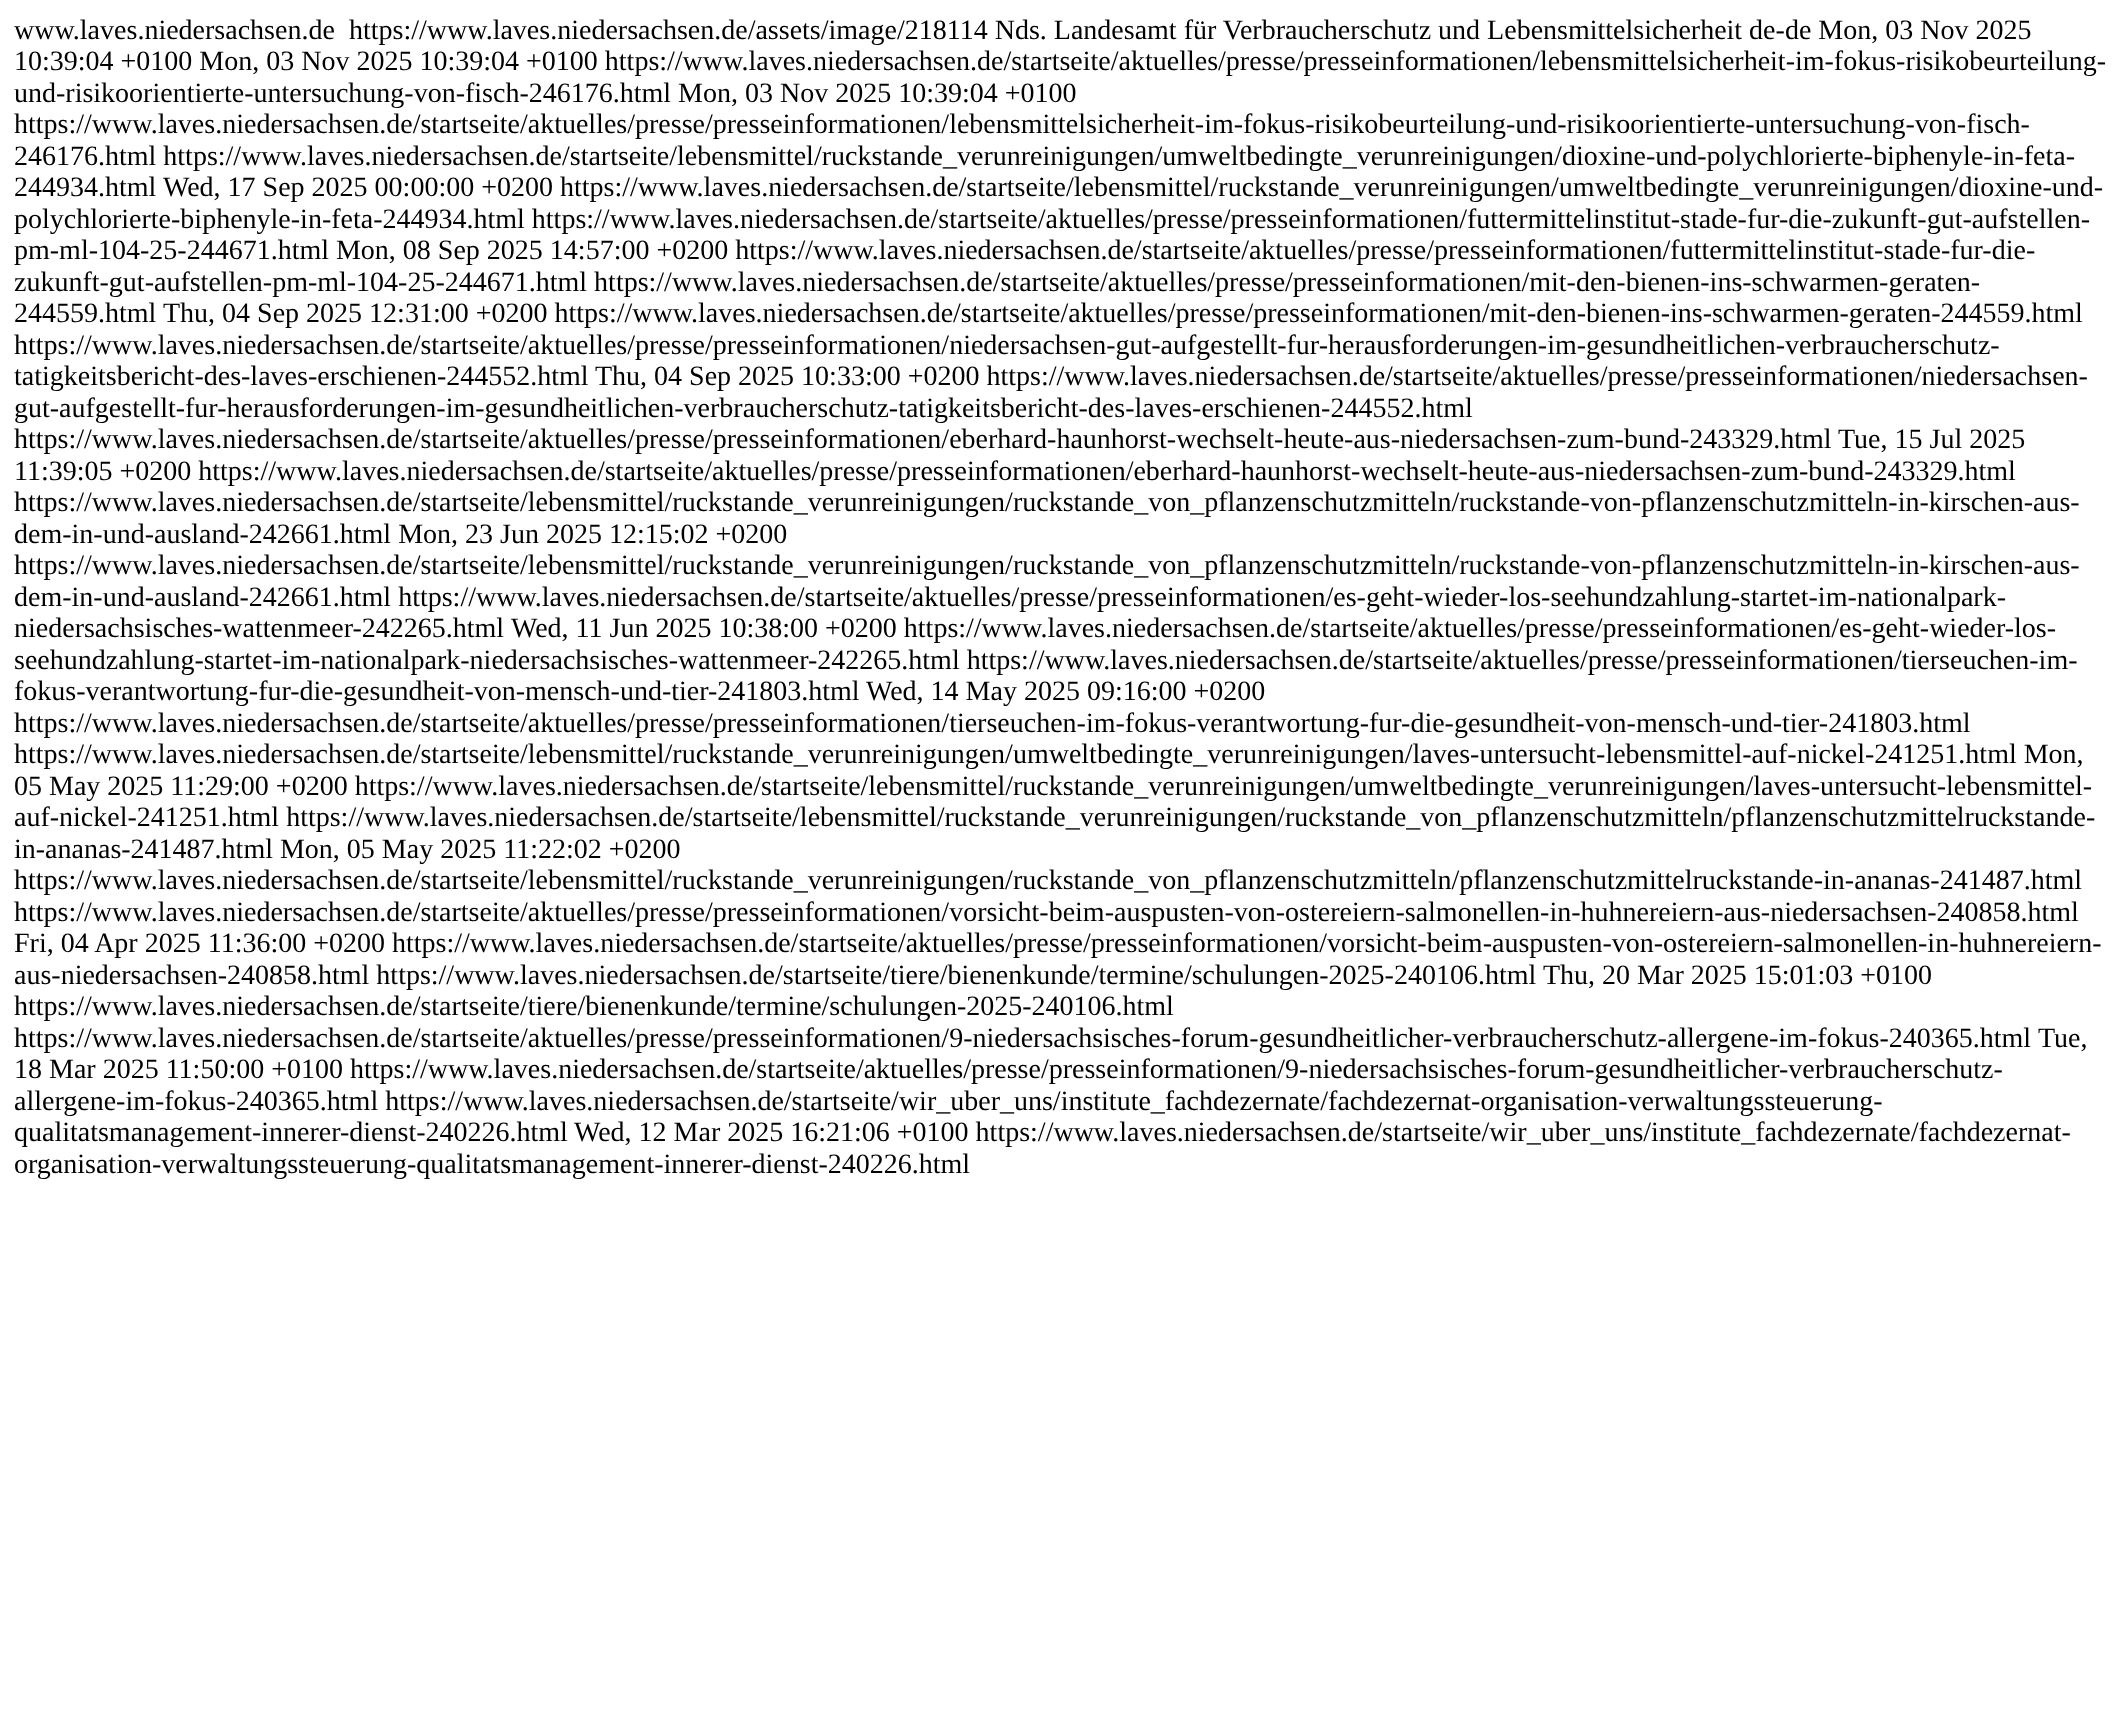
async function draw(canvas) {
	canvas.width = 2120;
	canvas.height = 1725;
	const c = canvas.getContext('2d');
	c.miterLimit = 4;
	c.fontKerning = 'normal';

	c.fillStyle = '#fff';
	c.fillRect(0, 0, 2120, 1725);
	c.font = '28px Liberation Serif';
	c.fillStyle = '#000';
	for (const [text, x, y] of [
		['www.laves.niedersachsen.de', 14, 39],
		['https://www.laves.niedersachsen.de/assets/image/218114 Nds. Landesamt für Verbraucherschutz und Lebensmittelsicherheit de-de Mon, 03 Nov 2025', 349, 39],
		['10:39:04 +0100 Mon, 03 Nov 2025 10:39:04 +0100 https://www.laves.niedersachsen.de/startseite/aktuelles/presse/presseinformationen/lebensmittelsicherheit-im-fokus-risikobeurteilung-', 14, 70],
		['und-risikoorientierte-untersuchung-von-fisch-246176.html Mon, 03 Nov 2025 10:39:04 +0100', 14, 102],
		['https://www.laves.niedersachsen.de/startseite/aktuelles/presse/presseinformationen/lebensmittelsicherheit-im-fokus-risikobeurteilung-und-risikoorientierte-untersuchung-von-fisch-', 14, 133],
		['246176.html https://www.laves.niedersachsen.de/startseite/lebensmittel/ruckstande_verunreinigungen/umweltbedingte_verunreinigungen/dioxine-und-polychlorierte-biphenyle-in-feta-', 14, 165],
		['244934.html', 14, 196],
		['Wed, 17 Sep 2025 00:00:00 +0200 https://www.laves.niedersachsen.de/startseite/lebensmittel/ruckstande_verunreinigungen/umweltbedingte_verunreinigungen/dioxine-und-', 163, 196],
		['polychlorierte-biphenyle-in-feta-244934.html https://www.laves.niedersachsen.de/startseite/aktuelles/presse/presseinformationen/futtermittelinstitut-stade-fur-die-zukunft-gut-aufstellen-', 14, 228],
		['pm-ml-104-25-244671.html Mon, 08 Sep 2025 14:57:00 +0200 https://www.laves.niedersachsen.de/startseite/aktuelles/presse/presseinformationen/futtermittelinstitut-stade-fur-die-', 14, 259],
		['zukunft-gut-aufstellen-pm-ml-104-25-244671.html https://www.laves.niedersachsen.de/startseite/aktuelles/presse/presseinformationen/mit-den-bienen-ins-schwarmen-geraten-', 14, 291],
		['244559.html', 14, 322],
		['Thu, 04 Sep 2025 12:31:00 +0200 https://www.laves.niedersachsen.de/startseite/aktuelles/presse/presseinformationen/mit-den-bienen-ins-schwarmen-geraten-244559.html', 163, 322],
		['https://www.laves.niedersachsen.de/startseite/aktuelles/presse/presseinformationen/niedersachsen-gut-aufgestellt-fur-herausforderungen-im-gesundheitlichen-verbraucherschutz-', 14, 354],
		['tatigkeitsbericht-des-laves-erschienen-244552.html', 14, 385],
		['Thu, 04 Sep 2025 10:33:00 +0200 https://www.laves.niedersachsen.de/startseite/aktuelles/presse/presseinformationen/niedersachsen-', 595, 385],
		['gut-aufgestellt-fur-herausforderungen-im-gesundheitlichen-verbraucherschutz-tatigkeitsbericht-des-laves-erschienen-244552.html', 14, 417],
		['https://www.laves.niedersachsen.de/startseite/aktuelles/presse/presseinformationen/eberhard-haunhorst-wechselt-heute-aus-niedersachsen-zum-bund-243329.html', 14, 448],
		['Tue, 15 Jul 2025', 1838, 448],
		['11:39:05 +0200 https://www.laves.niedersachsen.de/startseite/aktuelles/presse/presseinformationen/eberhard-haunhorst-wechselt-heute-aus-niedersachsen-zum-bund-243329.html', 14, 480],
		['https://www.laves.niedersachsen.de/startseite/lebensmittel/ruckstande_verunreinigungen/ruckstande_von_pflanzenschutzmitteln/ruckstande-von-pflanzenschutzmitteln-in-kirschen-aus-', 14, 511],
		['dem-in-und-ausland-242661.html Mon, 23 Jun 2025 12:15:02 +0200', 14, 543],
		['https://www.laves.niedersachsen.de/startseite/lebensmittel/ruckstande_verunreinigungen/ruckstande_von_pflanzenschutzmitteln/ruckstande-von-pflanzenschutzmitteln-in-kirschen-aus-', 14, 574],
		['dem-in-und-ausland-242661.html https://www.laves.niedersachsen.de/startseite/aktuelles/presse/presseinformationen/es-geht-wieder-los-seehundzahlung-startet-im-nationalpark-', 14, 606],
		['niedersachsisches-wattenmeer-242265.html', 14, 637],
		['Wed, 11 Jun 2025 10:38:00 +0200 https://www.laves.niedersachsen.de/startseite/aktuelles/presse/presseinformationen/es-geht-wieder-los-', 511, 637],
		['seehundzahlung-startet-im-nationalpark-niedersachsisches-wattenmeer-242265.html https://www.laves.niedersachsen.de/startseite/aktuelles/presse/presseinformationen/tierseuchen-im-', 14, 669],
		['fokus-verantwortung-fur-die-gesundheit-von-mensch-und-tier-241803.html', 14, 700],
		['Wed, 14 May 2025 09:16:00 +0200', 866, 700],
		['https://www.laves.niedersachsen.de/startseite/aktuelles/presse/presseinformationen/tierseuchen-im-fokus-verantwortung-fur-die-gesundheit-von-mensch-und-tier-241803.html', 14, 732],
		['https://www.laves.niedersachsen.de/startseite/lebensmittel/ruckstande_verunreinigungen/umweltbedingte_verunreinigungen/laves-untersucht-lebensmittel-auf-nickel-241251.html Mon,', 14, 763],
		['05 May 2025 11:29:00 +0200 https://www.laves.niedersachsen.de/startseite/lebensmittel/ruckstande_verunreinigungen/umweltbedingte_verunreinigungen/laves-untersucht-lebensmittel-', 14, 795],
		['auf-nickel-241251.html https://www.laves.niedersachsen.de/startseite/lebensmittel/ruckstande_verunreinigungen/ruckstande_von_pflanzenschutzmitteln/pflanzenschutzmittelruckstande-', 14, 826],
		['in-ananas-241487.html Mon, 05 May 2025 11:22:02 +0200', 14, 858],
		['https://www.laves.niedersachsen.de/startseite/lebensmittel/ruckstande_verunreinigungen/ruckstande_von_pflanzenschutzmitteln/pflanzenschutzmittelruckstande-in-ananas-241487.html', 14, 889],
		['https://www.laves.niedersachsen.de/startseite/aktuelles/presse/presseinformationen/vorsicht-beim-auspusten-von-ostereiern-salmonellen-in-huhnereiern-aus-niedersachsen-240858.html', 14, 921],
		['Fri, 04 Apr 2025 11:36:00 +0200 https://www.laves.niedersachsen.de/startseite/aktuelles/presse/presseinformationen/vorsicht-beim-auspusten-von-ostereiern-salmonellen-in-huhnereiern-', 14, 952],
		['aus-niedersachsen-240858.html https://www.laves.niedersachsen.de/startseite/tiere/bienenkunde/termine/schulungen-2025-240106.html', 14, 984],
		['Thu, 20 Mar 2025 15:01:03 +0100', 1543, 984],
		['https://www.laves.niedersachsen.de/startseite/tiere/bienenkunde/termine/schulungen-2025-240106.html', 14, 1015],
		['https://www.laves.niedersachsen.de/startseite/aktuelles/presse/presseinformationen/9-niedersachsisches-forum-gesundheitlicher-verbraucherschutz-allergene-im-fokus-240365.html', 14, 1047],
		['Tue,', 2038, 1047],
		['18 Mar 2025 11:50:00 +0100 https://www.laves.niedersachsen.de/startseite/aktuelles/presse/presseinformationen/9-niedersachsisches-forum-gesundheitlicher-verbraucherschutz-', 14, 1078],
		['allergene-im-fokus-240365.html https://www.laves.niedersachsen.de/startseite/wir_uber_uns/institute_fachdezernate/fachdezernat-organisation-verwaltungssteuerung-', 14, 1110],
		['qualitatsmanagement-innerer-dienst-240226.html', 14, 1141],
		['Wed, 12 Mar 2025 16:21:06 +0100 https://www.laves.niedersachsen.de/startseite/wir_uber_uns/institute_fachdezernate/fachdezernat-', 574, 1141],
		['organisation-verwaltungssteuerung-qualitatsmanagement-innerer-dienst-240226.html', 14, 1173],
	]) {
		c.fillText(text, x, y);
	}
}

draw(document.querySelector('canvas'));
